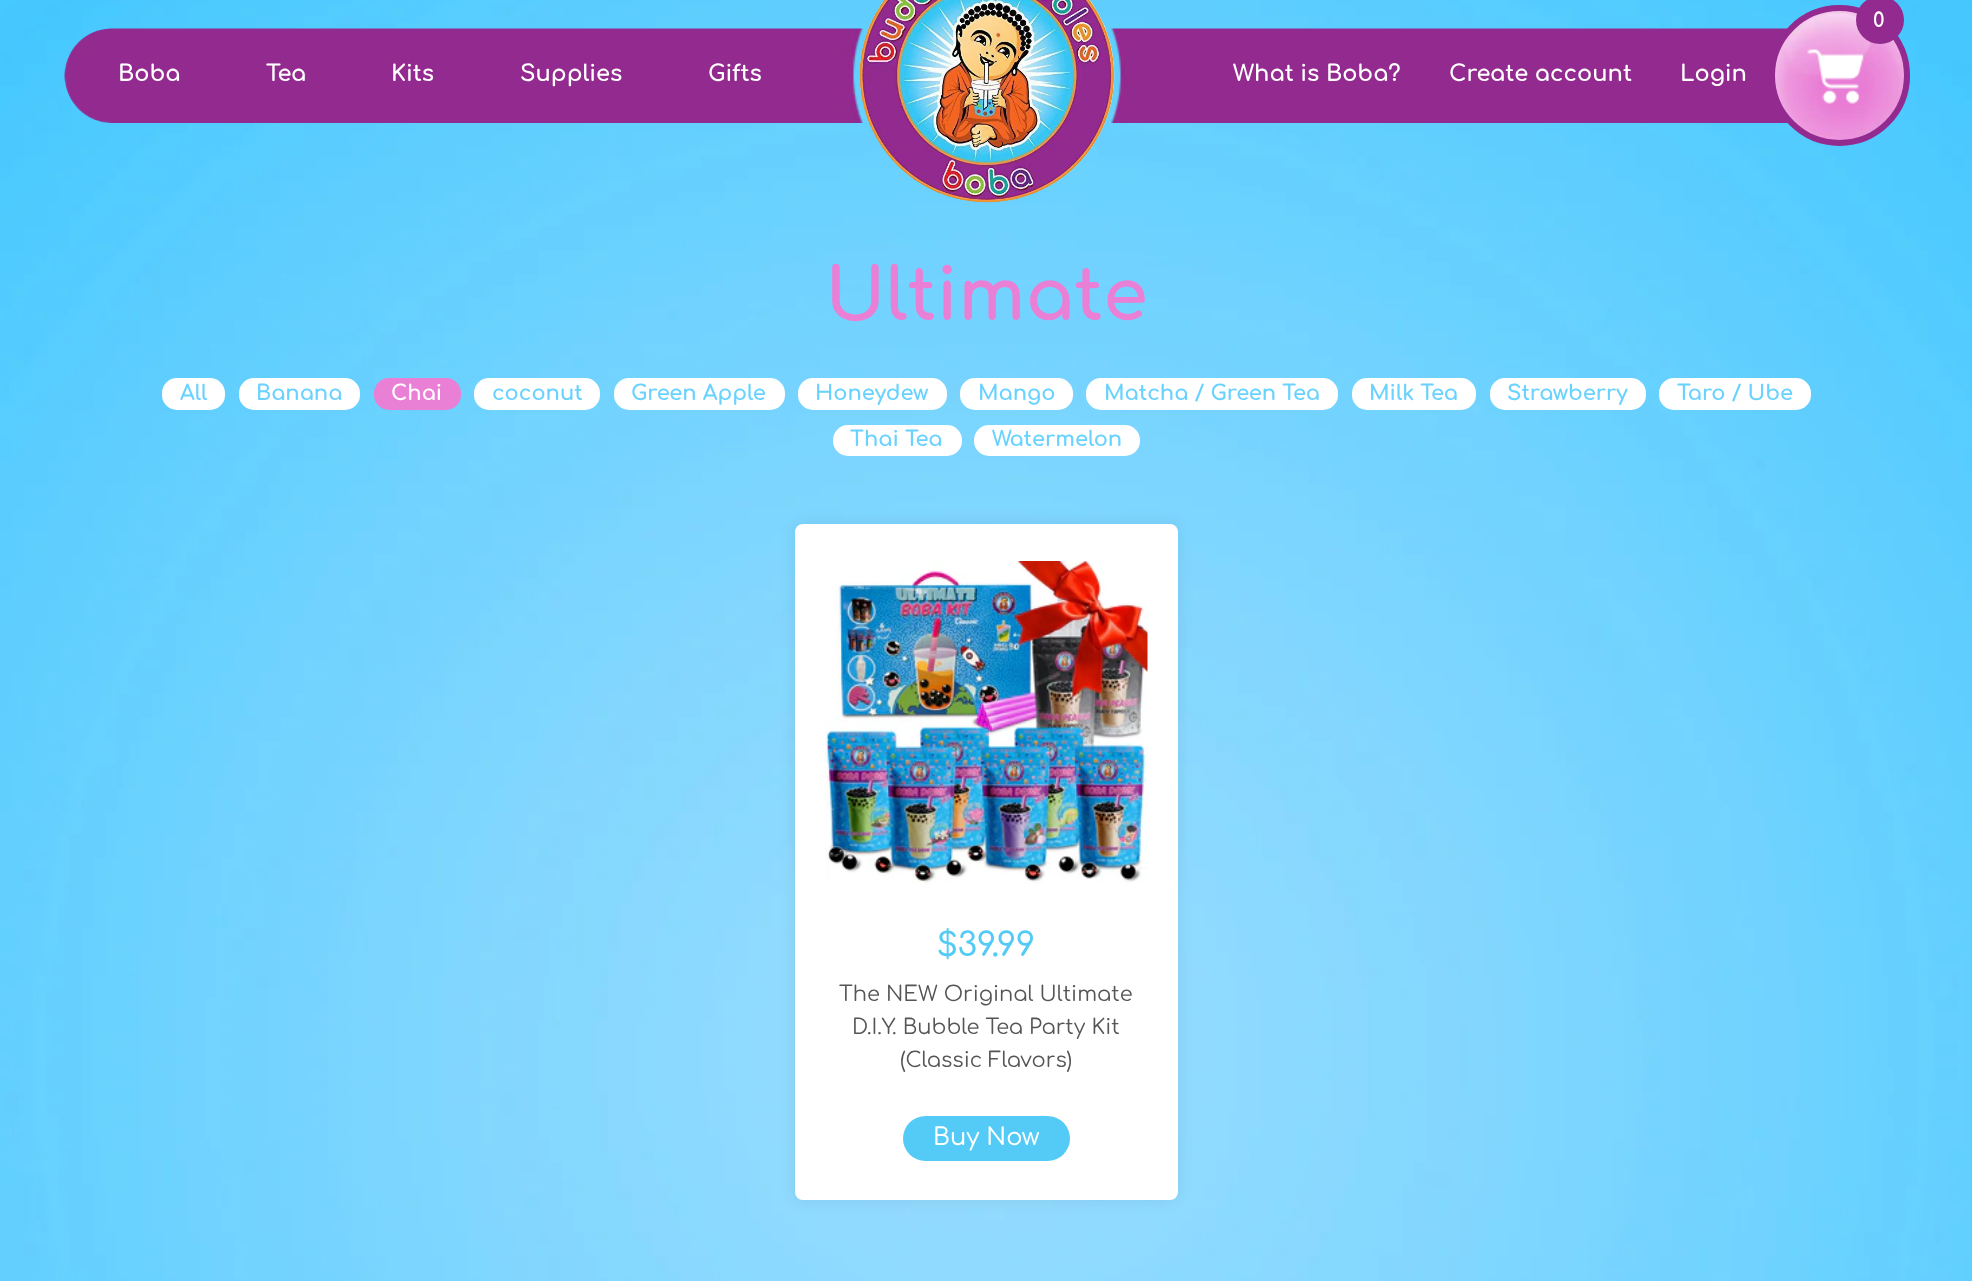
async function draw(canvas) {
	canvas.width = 1972;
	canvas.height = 1281;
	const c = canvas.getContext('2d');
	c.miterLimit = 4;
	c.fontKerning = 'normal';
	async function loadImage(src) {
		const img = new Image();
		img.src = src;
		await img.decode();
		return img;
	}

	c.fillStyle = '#fff';
	c.fillRect(0, 0, 1972, 1281);
	c.drawImage(await loadImage('img1.png'), 0, 0, 1972, 1281);
	c.drawImage(await loadImage('img2.png'), 64, 28, 1846, 95);
	c.drawImage(await loadImage('img3.png'), 859, 0, 256, 203);
	c.font = 'bold 22.5px Comfortaa';
	for (const [text, x, y] of [
		['Boba', 118, 81],
		['Tea', 266, 81],
		['Kits', 391, 81],
		['Supplies', 520, 81],
		['Gifts', 708, 81],
	]) {
		c.fillText(text, x, y);
	}
	c.drawImage(await loadImage('img4.png'), 1775, 11, 129, 129);
	c.beginPath();
	c.arc(1839.5, 75.5, 67.5, 0, 2 * Math.PI);
	c.strokeStyle = '#932a8f';
	c.lineWidth = 6;
	c.stroke();
	c.fillStyle = '#932a8f';
	c.beginPath();
	c.arc(1880, 20, 24, 0, 2 * Math.PI);
	c.fill();
	c.font = 'bold 20px Comfortaa';
	c.fillStyle = '#fff';
	c.fillText('0', 1873, 27);
	c.drawImage(await loadImage('img5.png'), 1807, 49, 57, 55);
	c.font = 'bold 22.5px Comfortaa';
	for (const [text, x, y] of [
		['What is Boba?', 1233, 81],
		['Create account', 1449, 81],
		['Login', 1680, 81],
	]) {
		c.fillText(text, x, y);
	}
	c.font = 'bold 72px Comfortaa';
	c.fillStyle = '#ea80d6';
	c.fillText('Ultimate', 825, 320);
	c.fillStyle = '#fff';
	c.beginPath();
	c.roundRect(162, 378, 63, 32, 15);
	c.fill();
	c.font = 'bold 21px Comfortaa';
	c.fillStyle = '#6ad2ff';
	c.fillText('All', 180, 400);
	c.fillStyle = '#fff';
	c.beginPath();
	c.roundRect(239, 378, 121, 32, 15);
	c.fill();
	c.fillStyle = '#6ad2ff';
	c.fillText('Banana', 256, 400);
	c.fillStyle = '#ea80d6';
	c.beginPath();
	c.roundRect(374, 378, 87, 32, 15);
	c.fill();
	c.fillStyle = '#fff';
	c.fillText('Chai', 391, 400);
	c.beginPath();
	c.roundRect(474, 378, 126, 32, 15);
	c.fill();
	c.fillStyle = '#6ad2ff';
	c.fillText('coconut', 492, 400);
	c.fillStyle = '#fff';
	c.beginPath();
	c.roundRect(614, 378, 171, 32, 15);
	c.fill();
	c.fillStyle = '#6ad2ff';
	c.fillText('Green Apple', 631, 400);
	c.fillStyle = '#fff';
	c.beginPath();
	c.roundRect(798, 378, 149, 32, 15);
	c.fill();
	c.fillStyle = '#6ad2ff';
	c.fillText('Honeydew', 815, 400);
	c.fillStyle = '#fff';
	c.beginPath();
	c.roundRect(960, 378, 113, 32, 15);
	c.fill();
	c.fillStyle = '#6ad2ff';
	c.fillText('Mango', 978, 400);
	c.fillStyle = '#fff';
	c.beginPath();
	c.roundRect(1086, 378, 252, 32, 15);
	c.fill();
	c.fillStyle = '#6ad2ff';
	c.fillText('Matcha / Green Tea', 1104, 400);
	c.fillStyle = '#fff';
	c.beginPath();
	c.roundRect(1352, 378, 124, 32, 15);
	c.fill();
	c.fillStyle = '#6ad2ff';
	c.fillText('Milk Tea', 1369, 400);
	c.fillStyle = '#fff';
	c.beginPath();
	c.roundRect(1490, 378, 156, 32, 15);
	c.fill();
	c.fillStyle = '#6ad2ff';
	c.fillText('Strawberry', 1507, 400);
	c.fillStyle = '#fff';
	c.beginPath();
	c.roundRect(1659, 378, 152, 32, 15);
	c.fill();
	c.fillStyle = '#6ad2ff';
	c.fillText('Taro / Ube', 1677, 400);
	c.fillStyle = '#fff';
	c.beginPath();
	c.roundRect(833, 425, 129, 31, 15);
	c.fill();
	c.fillStyle = '#6ad2ff';
	c.fillText('Thai Tea', 850, 446);
	c.fillStyle = '#fff';
	c.beginPath();
	c.roundRect(974, 425, 166, 31, 15);
	c.fill();
	c.fillStyle = '#6ad2ff';
	c.fillText('Watermelon', 992, 446);
	c.fillStyle = '#00000014';
	c.filter = 'blur(7.5px)';
	c.beginPath();
	c.roundRect(795, 524, 383, 676, 8);
	c.fill();
	c.filter = 'none';
	c.fillStyle = '#fff';
	c.beginPath();
	c.roundRect(795, 524, 383, 676, 8);
	c.fill();
	c.drawImage(await loadImage('img6.png'), 825, 561, 323, 323);
	c.font = '600 33px Comfortaa';
	c.fillStyle = '#53cbf6';
	c.fillText('$39.99', 937, 956);
	c.font = '21px Comfortaa';
	c.fillStyle = '#555';
	for (const [text, x, y] of [
		['The NEW Original Ultimate', 839, 1001],
		['D.I.Y. Bubble Tea Party Kit', 852, 1034],
		['(Classic Flavors)', 900, 1067],
	]) {
		c.fillText(text, x, y);
	}
	c.fillStyle = '#53cbf6';
	c.beginPath();
	c.roundRect(903, 1116, 167, 45, 22.5);
	c.fill();
	c.font = '500 24px Comfortaa';
	c.fillStyle = '#fff';
	c.fillText('Buy Now', 933, 1145);
}

draw(document.querySelector('canvas'));
